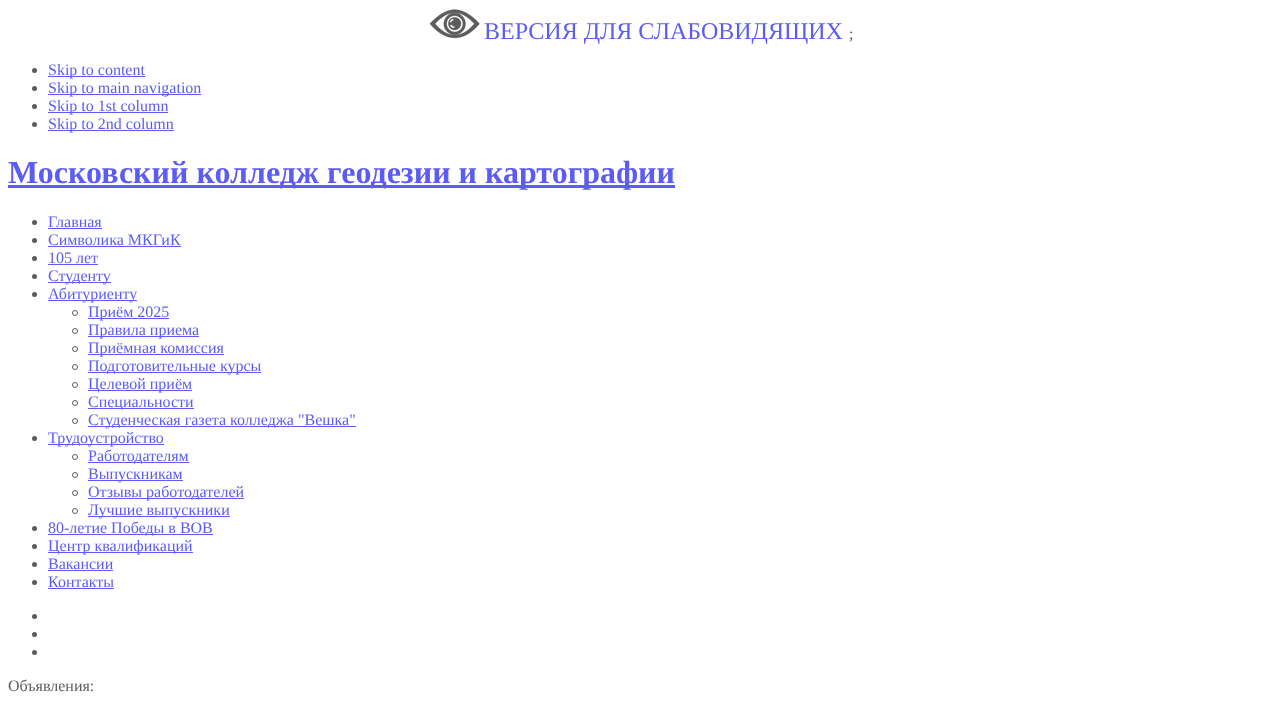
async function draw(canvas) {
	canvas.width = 1282;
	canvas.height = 701;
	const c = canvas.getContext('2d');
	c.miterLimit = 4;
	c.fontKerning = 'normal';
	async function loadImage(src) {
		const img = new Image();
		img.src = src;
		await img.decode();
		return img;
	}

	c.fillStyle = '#fff';
	c.fillRect(0, 0, 1282, 701);
	c.drawImage(await loadImage('img1.png'), 429, 9, 51, 30);
	c.font = '24px Liberation Serif';
	c.fillStyle = '#5c5cf4';
	c.fillText('ВЕРСИЯ ДЛЯ СЛАБОВИДЯЩИХ', 484, 39);
	c.font = '16px Liberation Serif';
	c.fillStyle = '#5c5c5c';
	c.fillText(';', 849, 39);
	c.beginPath();
	c.arc(34.5, 70.5, 2.5, 0, 2 * Math.PI);
	c.fill();
	c.fillStyle = '#5c5cf4';
	c.fillRect(48, 76, 97, 1);
	c.fillText('Skip to content', 48, 75);
	c.fillStyle = '#5c5c5c';
	c.beginPath();
	c.arc(34.5, 88.5, 2.5, 0, 2 * Math.PI);
	c.fill();
	c.fillStyle = '#5c5cf4';
	c.fillRect(48, 94, 153, 1);
	c.fillText('Skip to main navigation', 48, 93);
	c.fillStyle = '#5c5c5c';
	c.beginPath();
	c.arc(34.5, 106.5, 2.5, 0, 2 * Math.PI);
	c.fill();
	c.fillStyle = '#5c5cf4';
	c.fillRect(48, 112, 120, 1);
	c.fillText('Skip to 1st column', 48, 111);
	c.fillStyle = '#5c5c5c';
	c.beginPath();
	c.arc(34.5, 124.5, 2.5, 0, 2 * Math.PI);
	c.fill();
	c.fillStyle = '#5c5cf4';
	c.fillRect(48, 130, 126, 1);
	c.fillText('Skip to 2nd column', 48, 129);
	c.fillRect(8, 185, 667, 3);
	c.font = 'bold 32px Liberation Serif';
	c.fillText('Московский колледж геодезии и картографии', 8, 183);
	c.fillStyle = '#5c5c5c';
	c.beginPath();
	c.arc(34.5, 222.5, 2.5, 0, 2 * Math.PI);
	c.fill();
	c.font = '16px Liberation Serif';
	c.fillStyle = '#5c5cf4';
	c.fillText('Главная', 48, 227);
	c.fillRect(48, 228, 54, 1);
	c.fillStyle = '#5c5c5c';
	c.beginPath();
	c.arc(34.5, 240.5, 2.5, 0, 2 * Math.PI);
	c.fill();
	c.fillStyle = '#5c5cf4';
	c.fillText('Символика МКГиК', 48, 245);
	c.fillRect(48, 246, 133, 1);
	c.fillStyle = '#5c5c5c';
	c.beginPath();
	c.arc(34.5, 258.5, 2.5, 0, 2 * Math.PI);
	c.fill();
	c.fillStyle = '#5c5cf4';
	c.fillText('105 лет', 48, 263);
	c.fillRect(48, 264, 50, 1);
	c.fillStyle = '#5c5c5c';
	c.beginPath();
	c.arc(34.5, 276.5, 2.5, 0, 2 * Math.PI);
	c.fill();
	c.fillStyle = '#5c5cf4';
	c.fillRect(48, 282, 63, 1);
	c.fillText('Студенту', 48, 281);
	c.fillStyle = '#5c5c5c';
	c.beginPath();
	c.arc(34.5, 294.5, 2.5, 0, 2 * Math.PI);
	c.fill();
	c.fillStyle = '#5c5cf4';
	c.fillRect(48, 300, 89, 1);
	c.fillText('Абитуриенту', 48, 299);
	c.beginPath();
	c.arc(75, 313, 2.5, 0, 2 * Math.PI);
	c.strokeStyle = '#5c5c5c';
	c.stroke();
	c.fillRect(88, 318, 81, 1);
	c.fillText('Приём 2025', 88, 317);
	c.beginPath();
	c.arc(75, 331, 2.5, 0, 2 * Math.PI);
	c.stroke();
	c.fillRect(88, 336, 111, 1);
	c.fillText('Правила приема', 88, 335);
	c.beginPath();
	c.arc(75, 349, 2.5, 0, 2 * Math.PI);
	c.stroke();
	c.fillRect(88, 354, 136, 1);
	c.fillText('Приёмная комиссия', 88, 353);
	c.beginPath();
	c.arc(75, 367, 2.5, 0, 2 * Math.PI);
	c.stroke();
	c.fillRect(88, 372, 173, 1);
	c.fillText('Подготовительные курсы', 88, 371);
	c.beginPath();
	c.arc(75, 385, 2.5, 0, 2 * Math.PI);
	c.stroke();
	c.fillRect(88, 390, 104, 1);
	c.fillText('Целевой приём', 88, 389);
	c.beginPath();
	c.arc(75, 403, 2.5, 0, 2 * Math.PI);
	c.stroke();
	c.fillRect(88, 408, 106, 1);
	c.fillText('Специальности', 88, 407);
	c.beginPath();
	c.arc(75, 421, 2.5, 0, 2 * Math.PI);
	c.stroke();
	c.fillRect(88, 426, 268, 1);
	c.fillText('Студенческая газета колледжа "Вешка"', 88, 425);
	c.fillStyle = '#5c5c5c';
	c.beginPath();
	c.arc(34.5, 438.5, 2.5, 0, 2 * Math.PI);
	c.fill();
	c.fillStyle = '#5c5cf4';
	c.fillRect(48, 444, 116, 1);
	c.fillText('Трудоустройство', 48, 443);
	c.beginPath();
	c.arc(75, 457, 2.5, 0, 2 * Math.PI);
	c.stroke();
	c.fillRect(88, 462, 101, 1);
	c.fillText('Работодателям', 88, 461);
	c.beginPath();
	c.arc(75, 475, 2.5, 0, 2 * Math.PI);
	c.stroke();
	c.fillRect(88, 480, 95, 1);
	c.fillText('Выпускникам', 88, 479);
	c.beginPath();
	c.arc(75, 493, 2.5, 0, 2 * Math.PI);
	c.stroke();
	c.fillRect(88, 498, 156, 1);
	c.fillText('Отзывы работодателей', 88, 497);
	c.beginPath();
	c.arc(75, 511, 2.5, 0, 2 * Math.PI);
	c.stroke();
	c.fillRect(88, 516, 142, 1);
	c.fillText('Лучшие выпускники', 88, 515);
	c.fillStyle = '#5c5c5c';
	c.beginPath();
	c.arc(34.5, 528.5, 2.5, 0, 2 * Math.PI);
	c.fill();
	c.fillStyle = '#5c5cf4';
	c.fillRect(48, 534, 165, 1);
	c.fillText('80-летие Победы в ВОВ', 48, 533);
	c.fillStyle = '#5c5c5c';
	c.beginPath();
	c.arc(34.5, 546.5, 2.5, 0, 2 * Math.PI);
	c.fill();
	c.fillStyle = '#5c5cf4';
	c.fillRect(48, 552, 145, 1);
	c.fillText('Центр квалификаций', 48, 551);
	c.fillStyle = '#5c5c5c';
	c.beginPath();
	c.arc(34.5, 564.5, 2.5, 0, 2 * Math.PI);
	c.fill();
	c.fillStyle = '#5c5cf4';
	c.fillText('Вакансии', 48, 569);
	c.fillRect(48, 570, 65, 1);
	c.fillStyle = '#5c5c5c';
	c.beginPath();
	c.arc(34.5, 582.5, 2.5, 0, 2 * Math.PI);
	c.fill();
	c.fillStyle = '#5c5cf4';
	c.fillText('Контакты', 48, 587);
	c.fillRect(48, 588, 66, 1);
	c.fillStyle = '#5c5c5c';
	c.beginPath();
	c.arc(34.5, 616.5, 2.5, 0, 2 * Math.PI);
	c.fill();
	c.beginPath();
	c.arc(34.5, 634.5, 2.5, 0, 2 * Math.PI);
	c.fill();
	c.beginPath();
	c.arc(34.5, 652.5, 2.5, 0, 2 * Math.PI);
	c.fill();
	c.fillText('Объявления:', 8, 691);
}

draw(document.querySelector('canvas'));
